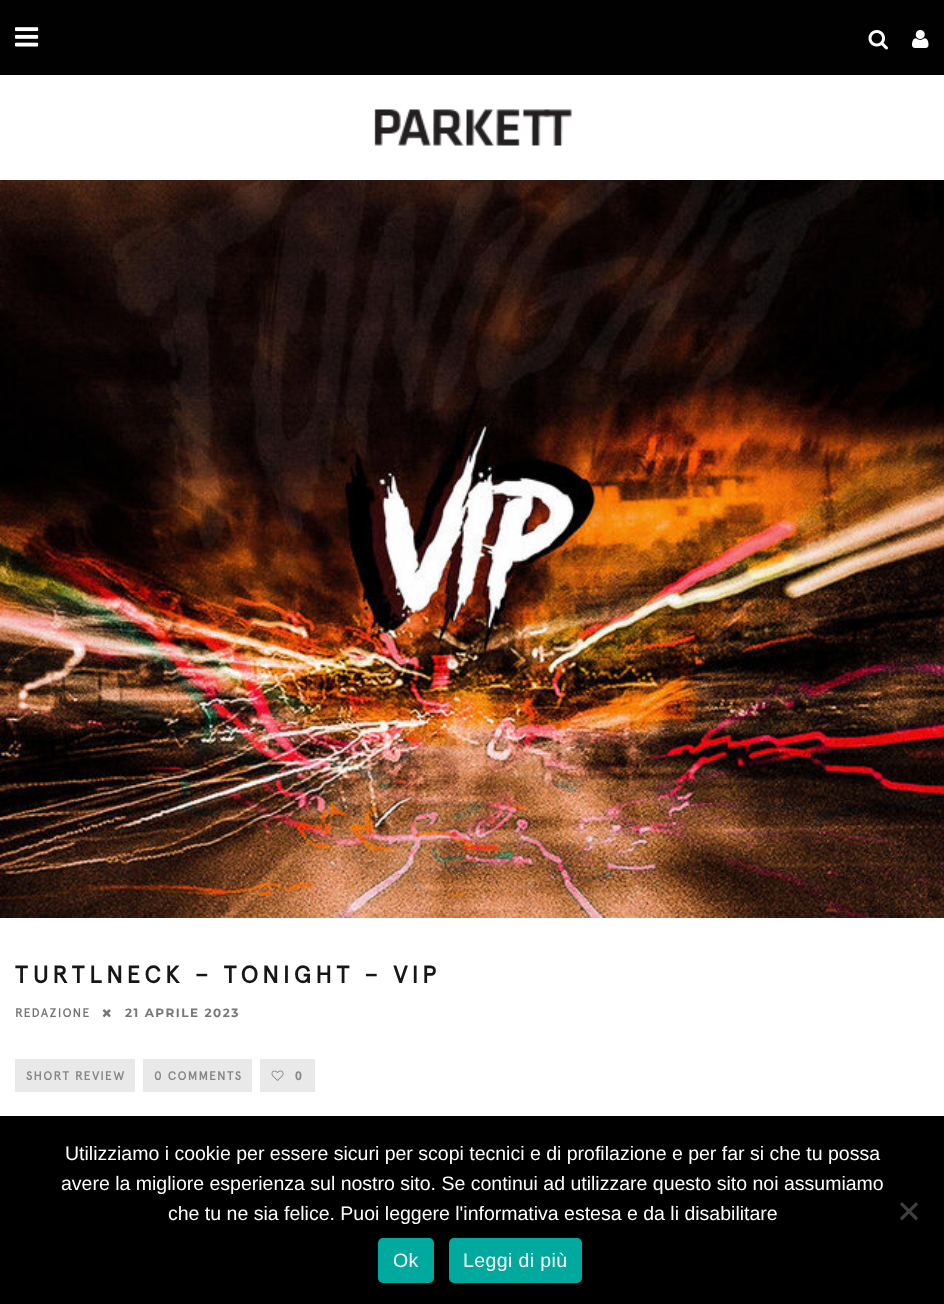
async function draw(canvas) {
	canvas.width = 944;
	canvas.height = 1304;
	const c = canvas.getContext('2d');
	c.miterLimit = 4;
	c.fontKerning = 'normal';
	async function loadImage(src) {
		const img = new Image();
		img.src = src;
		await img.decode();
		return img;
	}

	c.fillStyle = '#fff';
	c.fillRect(0, 0, 944, 1304);
	c.fillStyle = '#010101';
	c.fillRect(0, 0, 944, 75);
	c.drawImage(await loadImage('img1.png'), 15, 27, 24, 20);
	c.drawImage(await loadImage('img2.png'), 868, 30, 20, 20);
	c.drawImage(await loadImage('img3.png'), 912, 30, 17, 18);
	c.drawImage(await loadImage('img4.png'), 374, 109, 198, 37);
	c.drawImage(await loadImage('img5.png'), 0, 180, 944, 738);
	c.letterSpacing = '4.5px';
	c.font = 'bold 24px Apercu';
	c.fillStyle = '#161616';
	c.fillText('TURTLNECK – TONIGHT – VIP', 15, 983);
	c.letterSpacing = '1.5px';
	c.font = 'bold 12px Apercu';
	c.fillStyle = '#777';
	c.fillText('REDAZIONE', 15, 1017);
	c.drawImage(await loadImage('img6.png'), 102, 1009, 9, 9);
	c.font = 'bold 12px Montserrat';
	c.fillText('21 APRILE 2023', 125, 1017);
	c.fillStyle = '#e9e9e9';
	c.fillRect(15, 1059, 120, 33);
	c.font = 'bold 12px Apercu';
	c.fillStyle = '#868686';
	c.fillText('SHORT REVIEW', 26, 1080);
	c.fillStyle = '#e9e9e9';
	c.fillRect(143, 1059, 109, 33);
	c.fillStyle = '#868686';
	c.fillText('0 COMMENTS', 154, 1080);
	c.fillStyle = '#e9e9e9';
	c.fillRect(260, 1059, 55, 33);
	c.drawImage(await loadImage('img7.png'), 271, 1070, 13, 11);
	c.letterSpacing = '3px';
	c.font = 'bold 12px Open Sans';
	c.fillStyle = '#868686';
	c.fillText('0', 295, 1080);
	c.fillStyle = '#000';
	c.fillRect(0, 1116, 944, 188);
	c.letterSpacing = '0px';
	c.font = '19.5px Liberation Sans';
	c.fillStyle = '#fff';
	for (const [text, x, y] of [
		['Utilizziamo i cookie per essere sicuri per scopi tecnici e di profilazione e per far si che tu possa', 65, 1160],
		['avere la migliore esperienza sul nostro sito. Se continui ad utilizzare questo sito noi assumiamo', 61, 1190],
		['che tu ne sia felice. Puoi leggere l\'informativa estesa e da li disabilitare', 168, 1220],
	]) {
		c.fillText(text, x, y);
	}
	c.fillStyle = '#404040';
	c.beginPath();
	c.moveTo(916, 1202);
	c.lineTo(918, 1204.5);
	c.lineTo(902, 1220.5);
	c.lineTo(900, 1218);
	c.closePath();
	c.fill();
	c.beginPath();
	c.moveTo(900, 1204.5);
	c.lineTo(902, 1202);
	c.lineTo(918, 1218);
	c.lineTo(916, 1220.5);
	c.closePath();
	c.fill();
	c.fillStyle = '#00a99d';
	c.beginPath();
	c.roundRect(378, 1238, 56, 45, 5);
	c.fill();
	c.letterSpacing = '0.4px';
	c.fillStyle = '#fff';
	c.fillText('Ok', 393, 1267);
	c.fillStyle = '#00a99d';
	c.beginPath();
	c.roundRect(449, 1238, 133, 45, 5);
	c.fill();
	c.fillStyle = '#fff';
	c.fillText('Leggi di più', 463, 1267);
}

draw(document.querySelector('canvas'));
